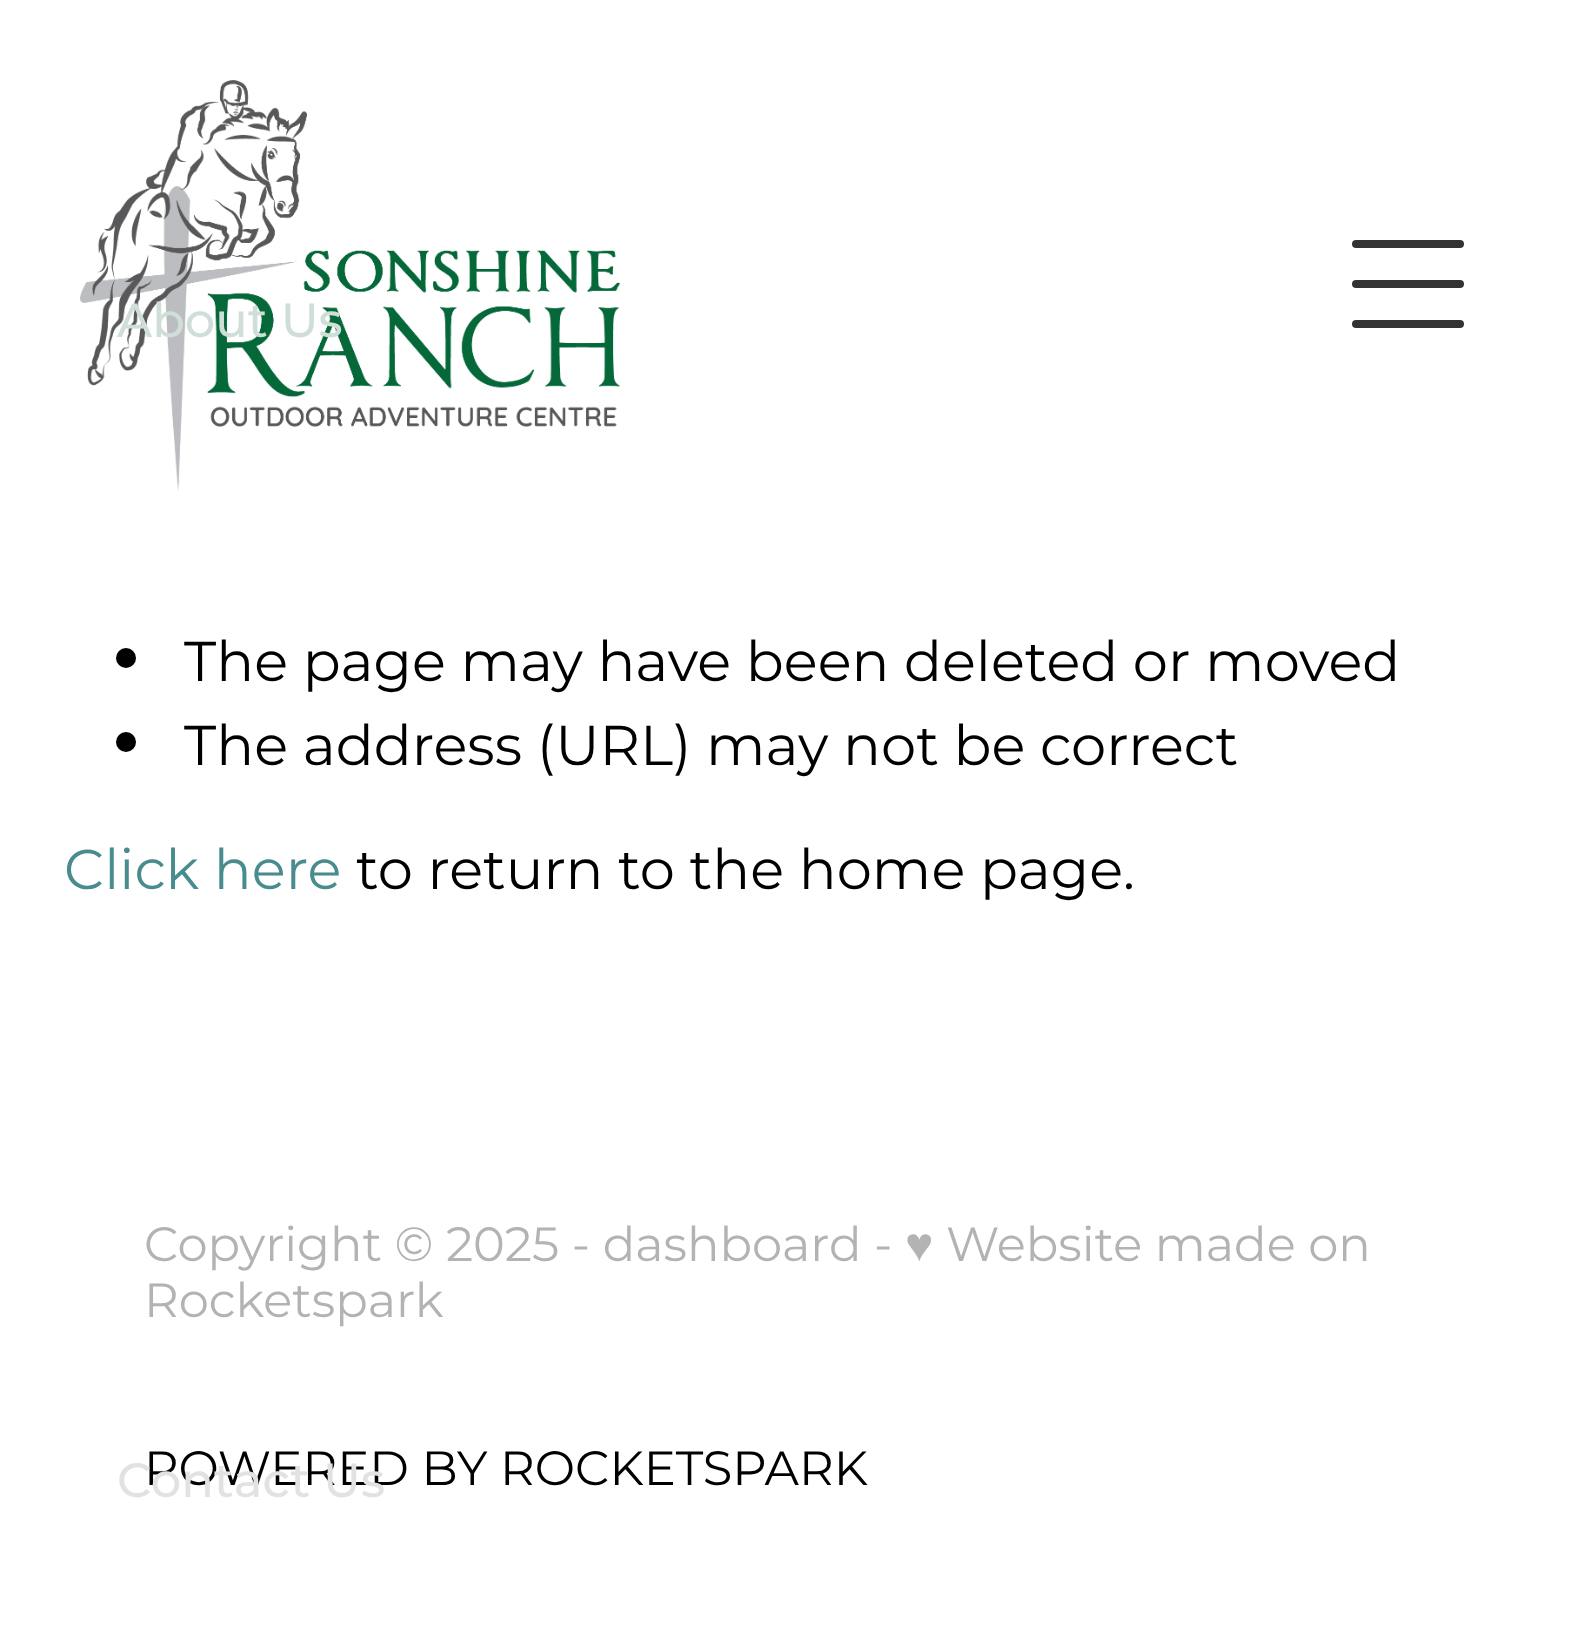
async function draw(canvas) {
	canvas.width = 1584;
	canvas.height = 1642;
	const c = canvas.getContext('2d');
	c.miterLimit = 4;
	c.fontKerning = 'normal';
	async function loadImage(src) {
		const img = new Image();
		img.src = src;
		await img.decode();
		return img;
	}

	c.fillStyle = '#fff';
	c.fillRect(0, 0, 1584, 1642);
	c.fillStyle = '#333';
	c.beginPath();
	c.roundRect(1352, 280, 112, 8, 4);
	c.fill();
	c.beginPath();
	c.roundRect(1352, 240, 112, 8, 4);
	c.fill();
	c.beginPath();
	c.roundRect(1352, 320, 112, 8, 4);
	c.fill();
	c.drawImage(await loadImage('img1.png'), 80, 80, 540, 412);
	c.font = '500 48px Montserrat';
	c.fillStyle = '#d0ded8';
	c.fillText('About Us', 117, 337);
	c.font = '48px Montserrat';
	c.fillStyle = '#000';
	c.fillText('POWERED BY ROCKETSPARK', 144, 1485);
	c.font = '500 48px Montserrat';
	c.fillStyle = '#e2e2e2';
	c.fillText('Contact Us', 117, 1497);
	c.fillStyle = '#010101';
	c.beginPath();
	c.arc(126, 658, 10, 0, 2 * Math.PI);
	c.fill();
	c.font = '56px Montserrat';
	c.fillStyle = '#000';
	c.fillText('The page may have been deleted or moved', 184, 681);
	c.fillStyle = '#010101';
	c.beginPath();
	c.arc(126, 742, 10, 0, 2 * Math.PI);
	c.fill();
	c.fillStyle = '#000';
	c.fillText('The address (URL) may not be correct', 184, 765);
	c.fillStyle = '#498c8e';
	c.fillText('Click here', 64, 889);
	c.fillStyle = '#000';
	c.fillText('to return to the home page.', 356, 889);
	c.font = '48px Montserrat';
	c.fillStyle = '#b3b3b3';
	c.fillText('Copyright © 2025 - dashboard -', 144, 1261);
	c.font = '48px Liberation Sans';
	c.fillText('♥', 905, 1261);
	c.font = '48px Montserrat';
	c.fillText('Website made on', 946, 1261);
	c.fillText('Rocketspark', 144, 1317);
}

draw(document.querySelector('canvas'));
